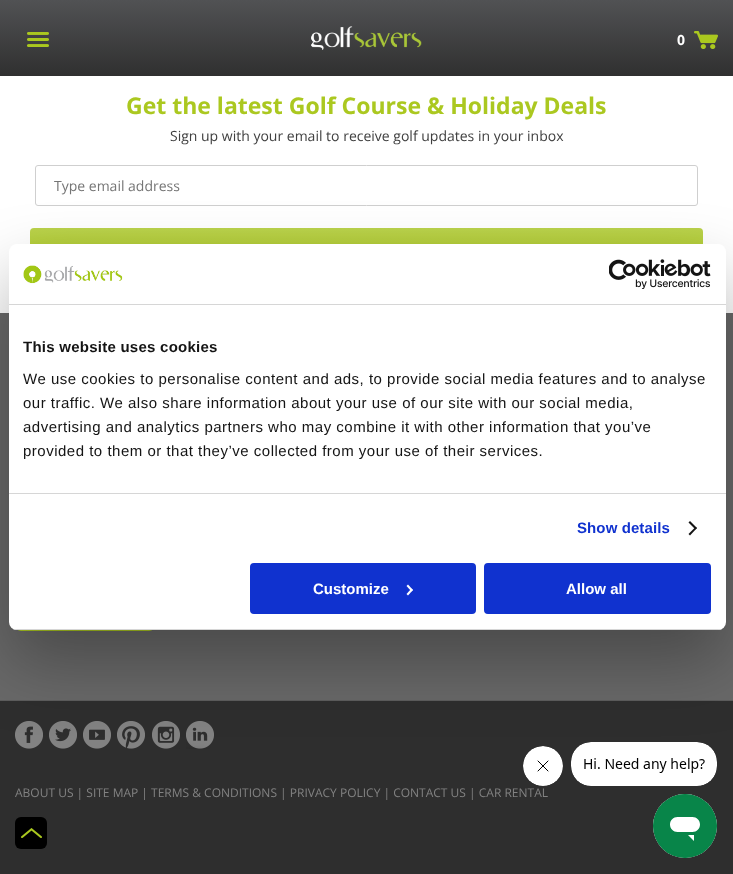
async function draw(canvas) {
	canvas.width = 733;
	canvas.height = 874;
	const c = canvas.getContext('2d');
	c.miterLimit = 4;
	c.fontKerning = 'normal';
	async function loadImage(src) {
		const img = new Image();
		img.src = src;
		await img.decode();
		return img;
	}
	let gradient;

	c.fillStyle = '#fff';
	c.fillRect(0, 0, 733, 874);
	gradient = c.createLinearGradient(367, 0, 367, 76);
	gradient.addColorStop(0, '#515254');
	gradient.addColorStop(0.99, '#303030');
	c.fillStyle = gradient;
	c.fillRect(0, 0, 733, 76);
	c.drawImage(await loadImage('img1.png'), 27, 32, 22, 15);
	c.drawImage(await loadImage('img2.png'), 311, 26, 111, 24);
	c.font = 'bold 14px Open Sans';
	c.fillStyle = '#fff';
	c.fillText('0', 677, 45);
	c.drawImage(await loadImage('img3.png'), 694, 31, 24, 18);
	c.font = 'bold 23px Open Sans';
	c.fillStyle = '#abc820';
	c.fillText('Get the latest Golf Course & Holiday Deals', 126, 114);
	c.font = '14px Open Sans';
	c.fillStyle = '#404040';
	c.fillText('Sign up with your email to receive golf updates in your inbox', 170, 141);
	c.beginPath();
	c.roundRect(35.5, 165.5, 662, 40, 2.5);
	c.strokeStyle = '#cfcfcf';
	c.stroke();
	c.fillStyle = '#757575';
	c.fillText('Type email address', 54, 191);
	gradient = c.createLinearGradient(367, 228, 367, 268);
	gradient.addColorStop(0, '#bbd34c');
	gradient.addColorStop(0.51, '#b3cd37');
	gradient.addColorStop(1, '#abc821');
	c.fillStyle = gradient;
	c.beginPath();
	c.roundRect(30, 228, 673, 40, 4);
	c.fill();
	c.fillStyle = '#696969';
	c.fillRect(0, 313, 733, 387);
	c.drawImage(await loadImage('img4.png'), 15, 629, 687, 2);
	c.fillStyle = '#2e2e2e';
	c.fillRect(0, 701, 733, 173);
	c.fillStyle = '#5d5d5d';
	c.fillRect(0, 700, 733, 1);
	c.drawImage(await loadImage('img7.png'), 15, 721, 28, 28);
	c.drawImage(await loadImage('img8.png'), 49, 721, 28, 28);
	c.drawImage(await loadImage('img9.png'), 83, 721, 28, 28);
	c.drawImage(await loadImage('img10.png'), 117, 721, 28, 28);
	c.drawImage(await loadImage('img11.png'), 152, 721, 28, 28);
	c.drawImage(await loadImage('img12.png'), 186, 721, 28, 28);
	c.drawImage(await loadImage('img14.png'), 523, 746, 40, 40);
	c.drawImage(await loadImage('img15.png'), 571, 742, 146, 44);
	c.fillStyle = '#0000004d';
	c.filter = 'blur(34px)';
	c.beginPath();
	c.roundRect(9, 276, 717, 386, 8);
	c.fill();
	c.filter = 'none';
	c.fillStyle = '#fff';
	c.beginPath();
	c.roundRect(9, 244, 717, 386, 8);
	c.fill();
	c.fillStyle = '#d6d6d6';
	c.fillRect(9, 304, 717, 1);
	c.drawImage(await loadImage('img5.png'), 23, 265, 100, 19);
	c.drawImage(await loadImage('img6.png'), 609, 259, 102, 30);
	c.fillRect(9, 493, 717, 1);
	c.letterSpacing = '0.25px';
	c.font = 'bold 15px Liberation Sans';
	c.fillStyle = '#141414';
	c.fillText('This website uses cookies', 23, 352);
	c.letterSpacing = '0.5px';
	c.font = '15px Liberation Sans';
	for (const [text, x, y] of [
		['We use cookies to personalise content and ads, to provide social media features and to analyse', 23, 384],
		['our traffic. We also share information about your use of our site with our social media,', 23, 408],
		['advertising and analytics partners who may combine it with other information that you’ve', 23, 432],
		['provided to them or that they’ve collected from your use of their services.', 23, 456],
	]) {
		c.fillText(text, x, y);
	}
	c.letterSpacing = '0.1px';
	c.font = 'bold 15px Liberation Sans';
	c.fillStyle = '#1032cf';
	c.fillText('Show details', 577, 533);
	c.fillStyle = '#141414';
	c.beginPath();
	c.moveTo(690, 521);
	c.lineTo(697, 528);
	c.lineTo(695.5, 529.5);
	c.lineTo(688.5, 522.5);
	c.closePath();
	c.fill();
	c.beginPath();
	c.moveTo(695.5, 527);
	c.lineTo(697, 528);
	c.lineTo(690, 535.5);
	c.lineTo(688.5, 534);
	c.closePath();
	c.fill();
	c.save();
	c.beginPath();
	c.roundRect(9, 244, 717, 386, 8);
	c.clip();
	c.fillStyle = '#d6d6d6';
	c.fillRect(9, 629, 717, 1);
	c.restore();
	c.fillStyle = '#1032cf';
	c.beginPath();
	c.roundRect(251, 564, 224, 49, 3);
	c.fill();
	c.strokeStyle = '#1032cf';
	c.lineWidth = 2;
	c.stroke();
	c.letterSpacing = '0px';
	c.fillStyle = '#fff';
	c.fillText('Customize', 313, 594);
	c.beginPath();
	c.moveTo(408, 584.5);
	c.lineTo(413, 590);
	c.lineTo(411.5, 591.5);
	c.lineTo(406.5, 586);
	c.closePath();
	c.fill();
	c.beginPath();
	c.moveTo(411.5, 588.5);
	c.lineTo(413, 590);
	c.lineTo(408, 595.5);
	c.lineTo(406.5, 594);
	c.closePath();
	c.fill();
	c.fillStyle = '#1032cf';
	c.beginPath();
	c.roundRect(485, 564, 225, 49, 3);
	c.fill();
	c.stroke();
	c.fillStyle = '#fff';
	c.fillText('Allow all', 566, 594);
	c.font = '12px Open Sans';
	c.fillStyle = '#828282';
	c.fillText('ABOUT US | SITE MAP | TERMS & CONDITIONS | PRIVACY POLICY | CONTACT US | CAR RENTAL', 15, 797);
	c.drawImage(await loadImage('img13.png'), 15, 817, 32, 32);
	c.drawImage(await loadImage('img16.png'), 653, 794, 64, 64);
}

draw(document.querySelector('canvas'));
